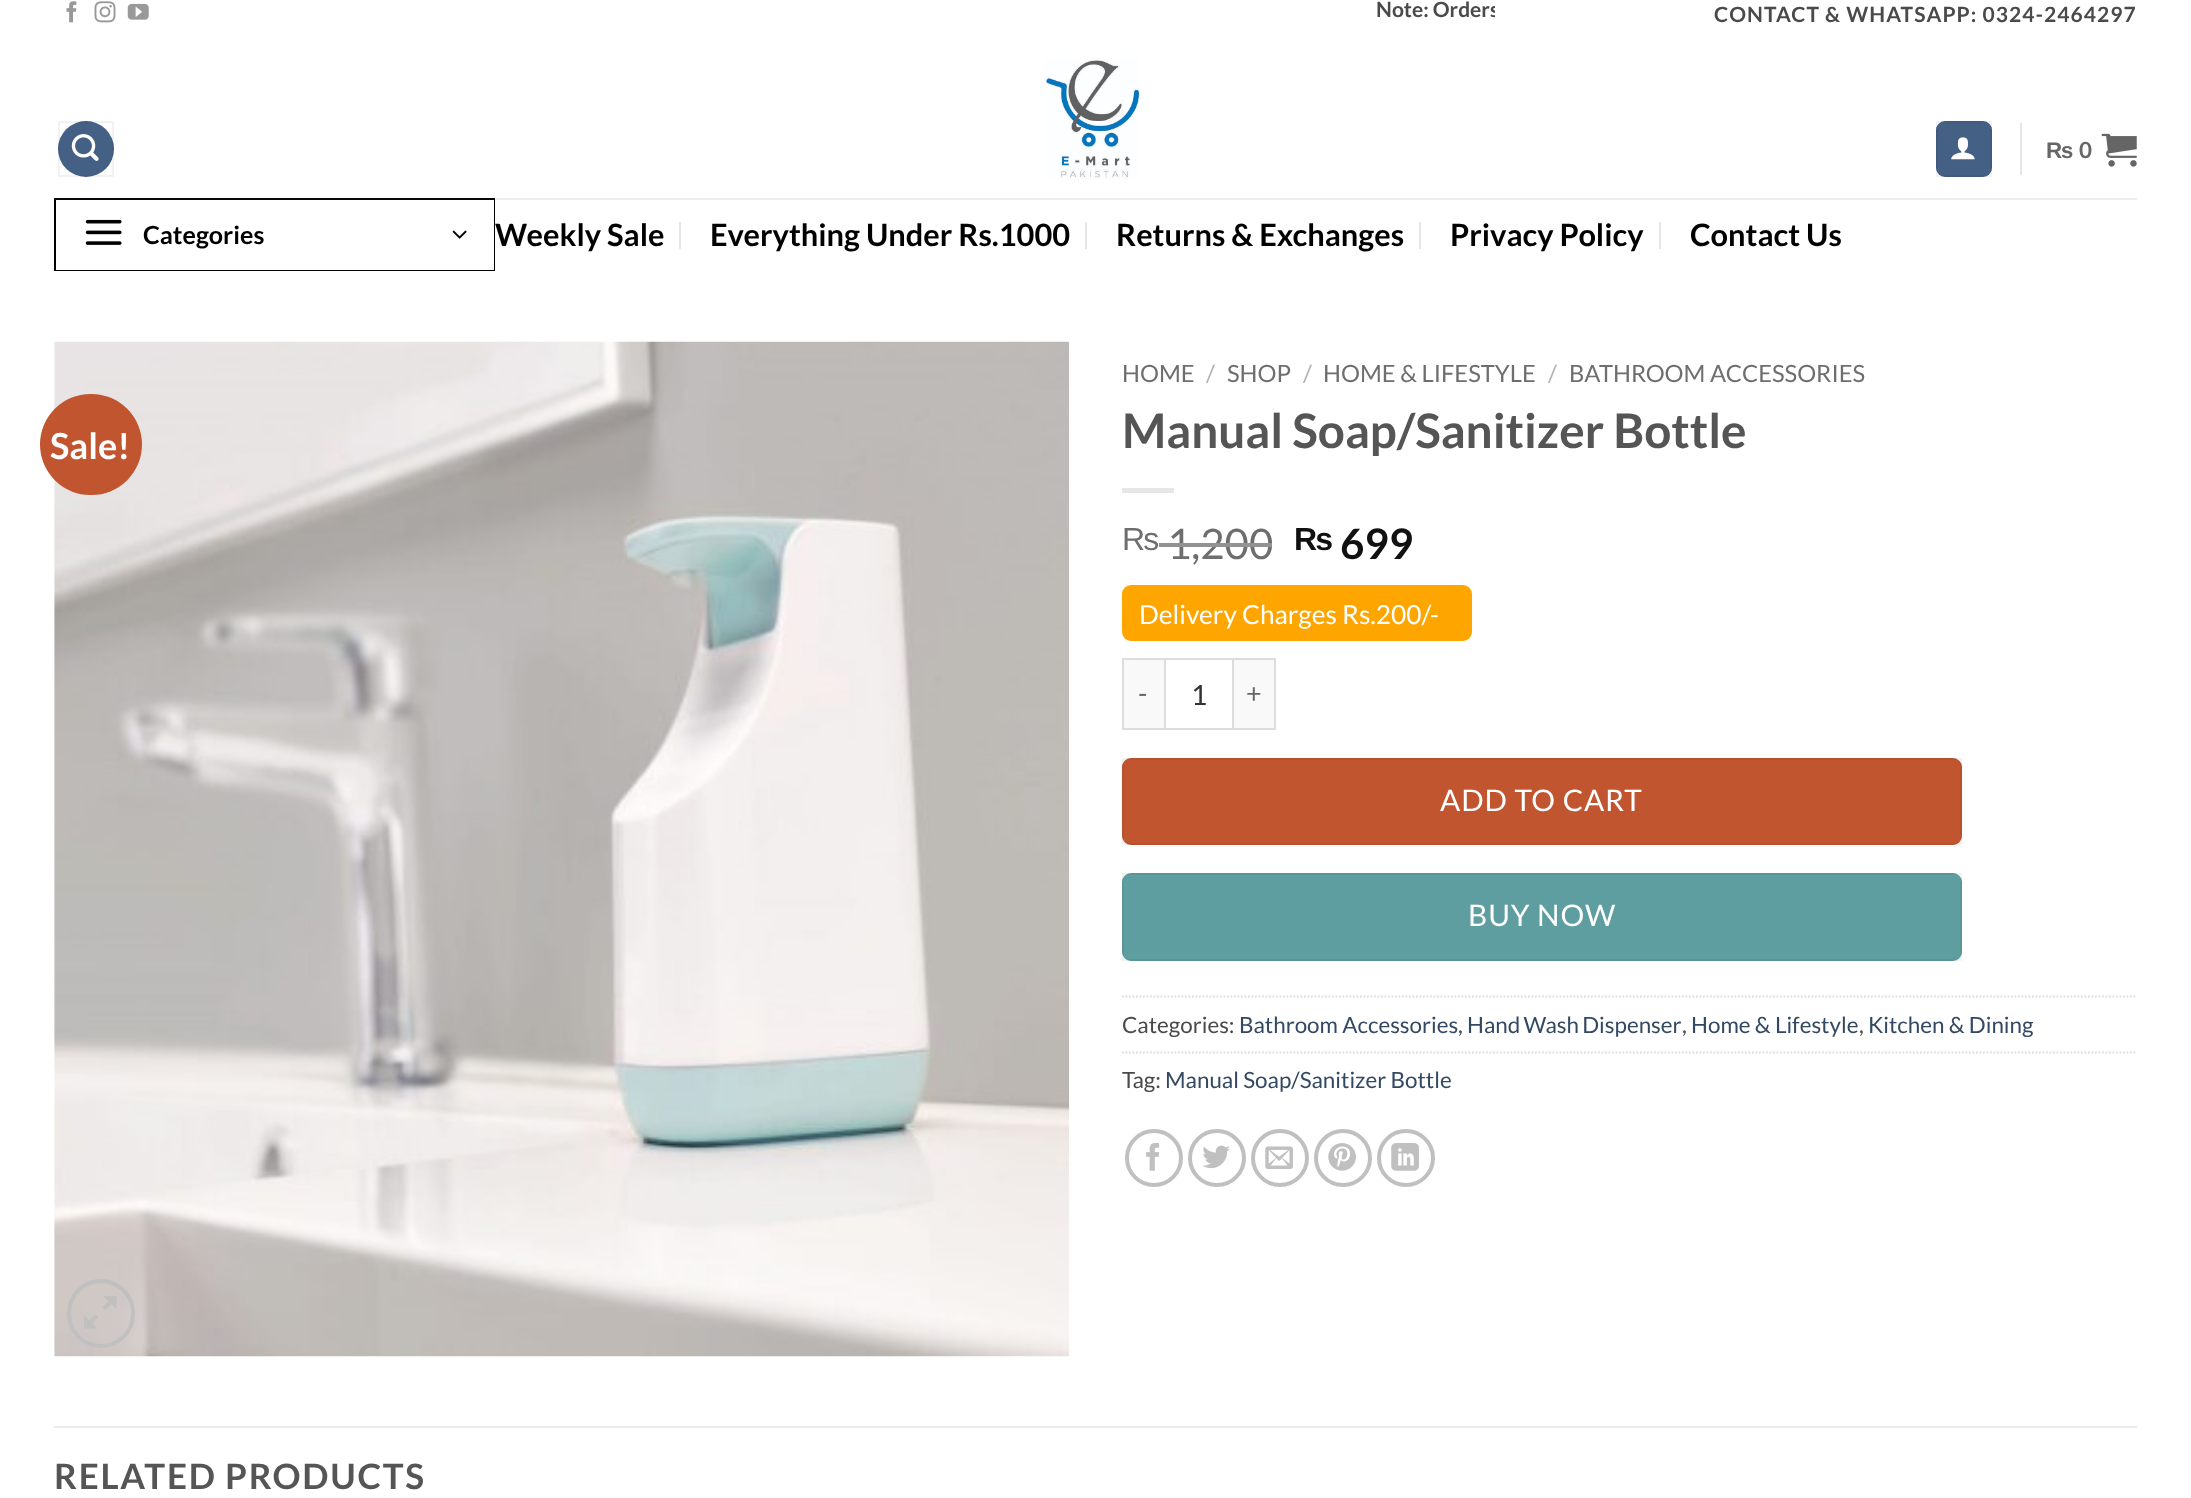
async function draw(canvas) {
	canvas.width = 2191;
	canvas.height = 1498;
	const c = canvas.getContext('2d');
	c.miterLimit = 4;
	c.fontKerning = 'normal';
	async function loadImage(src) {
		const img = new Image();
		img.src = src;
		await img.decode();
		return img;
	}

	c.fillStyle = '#fff';
	c.fillRect(0, 0, 2191, 1498);
	c.drawImage(await loadImage('img1.png'), 66, 1, 11, 22);
	c.drawImage(await loadImage('img2.png'), 94, 1, 22, 22);
	c.drawImage(await loadImage('img3.png'), 127, 3, 22, 17);
	c.save();
	c.beginPath();
	c.rect(697, 0, 798, 26);
	c.clip();
	c.font = 'bold 21px Lato';
	c.fillStyle = '#4a4a4a';
	c.fillText('Note: Orders', 1376, 17);
	c.restore();
	c.letterSpacing = '1.05px';
	c.font = 'bold 21px Lato';
	c.fillStyle = '#4a4a4a';
	c.fillText('CONTACT & WHATSAPP: 0324-2464297', 1714, 22);
	c.fillStyle = '#446084';
	c.beginPath();
	c.arc(86, 149, 28, 0, 2 * Math.PI);
	c.fill();
	c.strokeStyle = '#0000000d';
	c.lineWidth = 2;
	c.strokeRect(59, 122, 54, 54);
	c.drawImage(await loadImage('img4.png'), 71, 134, 28, 27);
	c.drawImage(await loadImage('img5.png'), 1044, 58, 96, 121);
	c.beginPath();
	c.roundRect(1936, 121, 56, 56, 9);
	c.fill();
	c.strokeRect(1937, 122, 54, 54);
	c.drawImage(await loadImage('img6.png'), 1951, 137, 24, 23);
	c.fillStyle = '#e6e6e6';
	c.fillRect(2020, 123, 2, 52);
	c.letterSpacing = '0px';
	c.font = 'bold 22.4px Liberation Sans';
	c.fillStyle = '#666';
	c.fillText('₨', 2046, 158);
	c.font = 'bold 22.4px Lato';
	c.fillText('0', 2079, 158);
	c.drawImage(await loadImage('img7.png'), 2101, 133, 36, 34);
	c.strokeStyle = '#000';
	c.strokeRect(55, 199, 439, 71);
	c.fillStyle = '#4a4a4a1a';
	c.fillRect(54, 198, 2083, 2);
	c.fillStyle = '#fff';
	c.fillRect(56, 200, 438, 70);
	c.drawImage(await loadImage('img8.png'), 85, 219, 37, 26);
	c.font = 'bold 25px Lato';
	c.fillStyle = '#000';
	c.fillText('Categories', 143, 244);
	c.drawImage(await loadImage('img9.png'), 452, 230, 15, 9);
	c.font = 'bold 30.75px Lato';
	c.fillText('Weekly Sale', 495, 246);
	c.fillStyle = '#e6e6e6';
	c.fillRect(679, 222, 2, 27);
	c.fillStyle = '#000';
	c.fillText('Everything Under Rs.1000', 710, 246);
	c.fillStyle = '#e6e6e6';
	c.fillRect(1085, 222, 2, 27);
	c.fillStyle = '#000';
	c.fillText('Returns & Exchanges', 1116, 246);
	c.fillStyle = '#e6e6e6';
	c.fillRect(1419, 222, 2, 27);
	c.fillStyle = '#000';
	c.fillText('Privacy Policy', 1450, 246);
	c.fillStyle = '#e6e6e6';
	c.fillRect(1659, 222, 2, 27);
	c.fillStyle = '#000';
	c.fillText('Contact Us', 1690, 246);
	c.drawImage(await loadImage('img10.png'), 54, 341, 1016, 1016);
	c.fillStyle = '#c05530';
	c.beginPath();
	c.roundRect(40, 394, 102, 101, 50.5);
	c.fill();
	c.font = 'bold 36px Lato';
	c.fillStyle = '#fff';
	c.fillText('Sale!', 50, 459);
	c.beginPath();
	c.roundRect(69, 1281, 64, 65, 32);
	c.strokeStyle = '#c0c0c0';
	c.lineWidth = 4;
	c.stroke();
	c.drawImage(await loadImage('img11.png'), 84, 1296, 33, 33);
	c.font = '23.75px Lato';
	c.fillStyle = '#6e6e6e';
	c.fillText('HOME', 1122, 382);
	c.fillStyle = '#b2b2b2';
	c.fillText('/', 1206, 382);
	c.fillStyle = '#6e6e6e';
	c.fillText('SHOP', 1227, 382);
	c.fillStyle = '#b2b2b2';
	c.fillText('/', 1303, 382);
	c.fillStyle = '#6e6e6e';
	c.fillText('HOME & LIFESTYLE', 1323, 382);
	c.fillStyle = '#b2b2b2';
	c.fillText('/', 1548, 382);
	c.fillStyle = '#6e6e6e';
	c.fillText('BATHROOM ACCESSORIES', 1569, 382);
	c.font = 'bold 47.6px Lato';
	c.fillStyle = '#555';
	c.fillText('Manual Soap/Sanitizer Bottle', 1122, 448);
	c.fillStyle = '#e6e6e6';
	c.fillRect(1122, 488, 52, 5);
	c.font = '32px Liberation Sans';
	c.fillStyle = '#6e6e6e';
	c.fillText('₨', 1122, 550);
	c.font = '42px Lato';
	c.fillText('1,200', 1167, 559);
	c.fillStyle = '#929292';
	c.fillRect(1159, 543, 113, 4);
	c.font = 'bold 32px Liberation Sans';
	c.fillStyle = '#111';
	c.fillText('₨', 1294, 550);
	c.font = 'bold 42px Lato';
	c.fillText('699', 1340, 559);
	c.fillStyle = '#ffa500';
	c.beginPath();
	c.roundRect(1122, 585, 350, 56, 9);
	c.fill();
	c.font = '26.25px Lato';
	c.fillStyle = '#fff';
	c.fillText('Delivery Charges Rs.200/-', 1139, 624);
	for (const [x, y, w, h, color] of [
		[1124, 660, 40, 68, '#f9f9f9'],
		[1122, 658, 42, 2, '#ddd'],
		[1122, 728, 42, 2, '#ddd'],
		[1122, 658, 2, 72, '#ddd'],
	]) {
		c.fillStyle = color;
		c.fillRect(x, y, w, h);
	}
	c.letterSpacing = '1px';
	c.font = '27px Lato';
	c.fillStyle = '#666';
	c.fillText('-', 1138, 703);
	c.strokeStyle = '#ddd';
	c.lineWidth = 2;
	c.strokeRect(1165, 659, 68, 70);
	c.letterSpacing = '0px';
	c.font = '28px Lato';
	c.fillStyle = '#333';
	c.fillText('1', 1191, 705);
	for (const [x, y, w, h, color] of [
		[1234, 660, 40, 68, '#f9f9f9'],
		[1234, 658, 42, 2, '#ddd'],
		[1274, 658, 2, 72, '#ddd'],
		[1234, 728, 42, 2, '#ddd'],
	]) {
		c.fillStyle = color;
		c.fillRect(x, y, w, h);
	}
	c.letterSpacing = '1px';
	c.font = '27px Lato';
	c.fillStyle = '#666';
	c.fillText('+', 1246, 703);
	c.fillStyle = '#c05530';
	c.beginPath();
	c.roundRect(1122, 758, 840, 87, 9);
	c.fill();
	c.strokeStyle = '#0000000d';
	c.strokeRect(1123, 759, 838, 85);
	c.letterSpacing = '0.9px';
	c.font = '29.75px Lato';
	c.fillStyle = '#fff';
	c.fillText('ADD TO CART', 1440, 811);
	c.fillStyle = '#5f9ea0';
	c.beginPath();
	c.roundRect(1122, 873, 840, 88, 9);
	c.fill();
	c.strokeRect(1123, 874, 838, 86);
	c.fillStyle = '#fff';
	c.fillText('BUY NOW', 1468, 926);
	c.beginPath();
	c.moveTo(1122, 996.5);
	c.lineTo(2137, 996.5);
	c.strokeStyle = '#ddd';
	c.lineWidth = 1.8;
	c.setLineDash([1.75, 1.75]);
	c.stroke();
	c.letterSpacing = '0px';
	c.font = '22.4px Lato';
	c.fillStyle = '#4a4a4a';
	c.fillText('Categories:', 1122, 1033);
	c.fillStyle = '#334862';
	c.fillText('Bathroom Accessories', 1239, 1033);
	c.fillStyle = '#4a4a4a';
	c.fillText(',', 1458, 1033);
	c.wordSpacing = '-1px';
	c.fillStyle = '#334862';
	c.fillText('Hand Wash Dispenser', 1467, 1033);
	c.wordSpacing = '0px';
	c.fillStyle = '#4a4a4a';
	c.fillText(',', 1682, 1033);
	c.fillStyle = '#334862';
	c.fillText('Home & Lifestyle', 1691, 1033);
	c.fillStyle = '#4a4a4a';
	c.fillText(',', 1859, 1033);
	c.fillStyle = '#334862';
	c.fillText('Kitchen & Dining', 1868, 1033);
	c.beginPath();
	c.moveTo(1122, 1052.5);
	c.lineTo(2137, 1052.5);
	c.stroke();
	c.fillStyle = '#4a4a4a';
	c.fillText('Tag:', 1122, 1088);
	c.fillStyle = '#334862';
	c.fillText('Manual Soap/Sanitizer Bottle', 1165, 1088);
	c.beginPath();
	c.arc(1154, 1158, 27, 0, 2 * Math.PI);
	c.strokeStyle = '#c0c0c0';
	c.lineWidth = 4;
	c.setLineDash([]);
	c.stroke();
	c.drawImage(await loadImage('img12.png'), 1146, 1143, 14, 28);
	c.beginPath();
	c.arc(1217, 1158, 27, 0, 2 * Math.PI);
	c.stroke();
	c.drawImage(await loadImage('img13.png'), 1202, 1145, 28, 24);
	c.beginPath();
	c.arc(1280, 1158, 27, 0, 2 * Math.PI);
	c.stroke();
	c.drawImage(await loadImage('img14.png'), 1265, 1146, 28, 23);
	c.beginPath();
	c.arc(1343, 1158, 27, 0, 2 * Math.PI);
	c.stroke();
	c.drawImage(await loadImage('img15.png'), 1328, 1143, 28, 28);
	c.beginPath();
	c.arc(1406, 1158, 27, 0, 2 * Math.PI);
	c.stroke();
	c.drawImage(await loadImage('img16.png'), 1391, 1143, 28, 28);
	c.fillStyle = '#ececec';
	c.fillRect(54, 1426, 2083, 2);
	c.letterSpacing = '1.75px';
	c.font = 'bold 35px Lato';
	c.fillStyle = '#555';
	c.fillText('RELATED PRODUCTS', 54, 1489);
}

draw(document.querySelector('canvas'));
